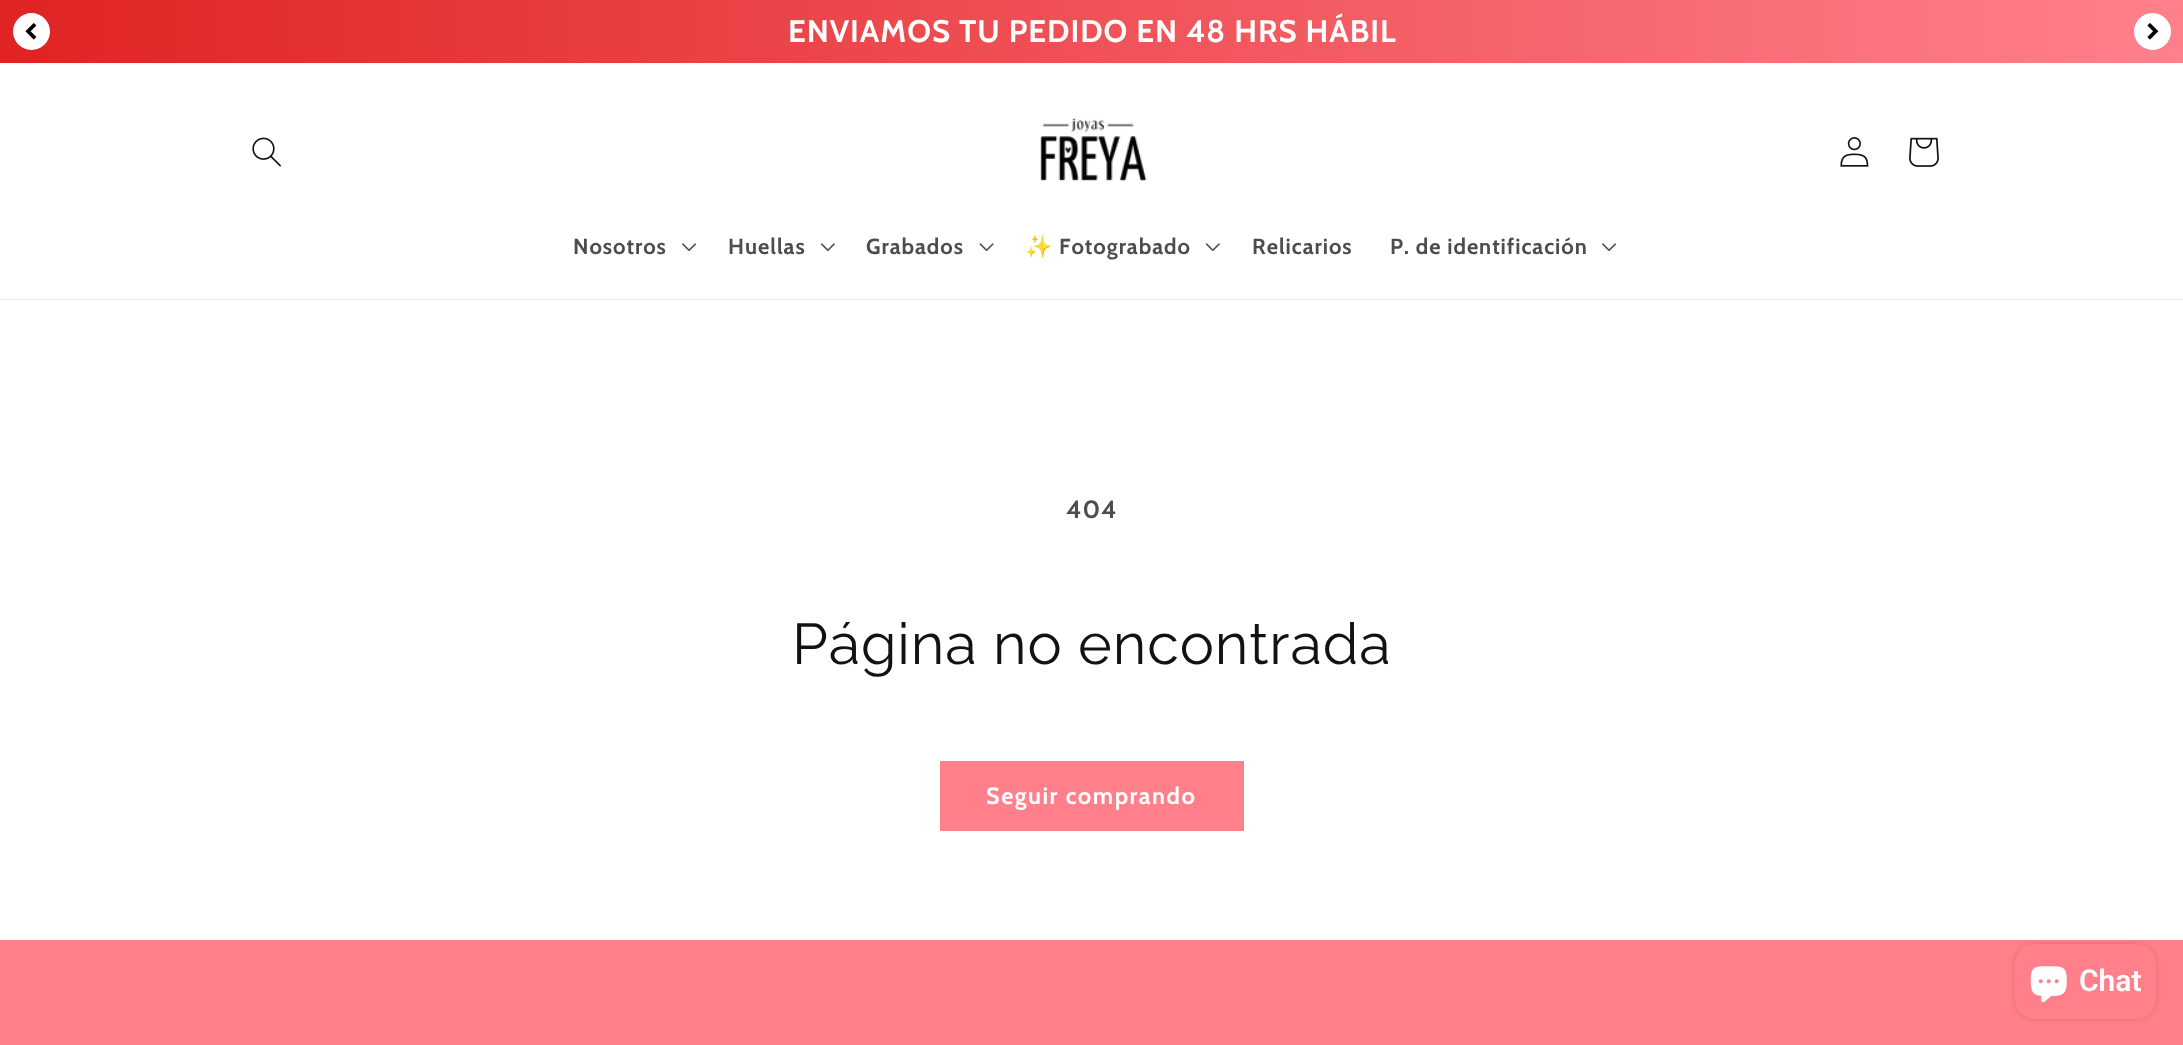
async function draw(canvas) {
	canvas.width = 2183;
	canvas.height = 1045;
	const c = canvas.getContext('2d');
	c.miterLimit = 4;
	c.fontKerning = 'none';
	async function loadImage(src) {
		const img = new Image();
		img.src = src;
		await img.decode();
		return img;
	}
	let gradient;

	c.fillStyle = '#fff';
	c.fillRect(0, 0, 2183, 1045);
	gradient = c.createLinearGradient(0, 31, 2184, 31);
	gradient.addColorStop(0, '#e02323');
	gradient.addColorStop(1, '#ff808b');
	c.fillStyle = gradient;
	c.fillRect(0, 0, 2183, 63);
	c.fillStyle = '#fff';
	c.beginPath();
	c.arc(31.5, 31.5, 18.5, 0, 2 * Math.PI);
	c.fill();
	c.drawImage(await loadImage('img1.png'), 25, 23, 12, 17);
	c.letterSpacing = '0.95px';
	c.font = 'bold 31.25px Cabin';
	c.fillText('ENVIAMOS TU PEDIDO EN 48 HRS HÁBIL', 788, 42);
	c.beginPath();
	c.arc(2152.5, 31.5, 18.5, 0, 2 * Math.PI);
	c.fill();
	c.drawImage(await loadImage('img2.png'), 2147, 23, 12, 17);
	c.fillStyle = '#ececec';
	c.fillRect(0, 299, 2183, 1);
	c.drawImage(await loadImage('img3.png'), 252, 137, 29, 30);
	c.drawImage(await loadImage('img4.png'), 1040, 118, 107, 64);
	c.drawImage(await loadImage('img5.png'), 1840, 137, 29, 30);
	c.drawImage(await loadImage('img6.png'), 1909, 137, 30, 30);
	c.font = 'bold 21.9px Cabin';
	c.fillStyle = '#4d4d4d';
	c.fillText('Nosotros', 573, 254);
	c.drawImage(await loadImage('img7.png'), 682, 243, 14, 8);
	c.fillText('Huellas', 728, 254);
	c.drawImage(await loadImage('img8.png'), 820, 243, 15, 8);
	c.fillText('Grabados', 866, 254);
	c.drawImage(await loadImage('img9.png'), 979, 243, 15, 8);
	c.font = 'bold 21.9px Noto Color Emoji';
	c.fillText('✨', 1025, 254);
	c.font = 'bold 21.9px Cabin';
	c.fillText('Fotograbado', 1059, 254);
	c.drawImage(await loadImage('img8.png'), 1205, 243, 15, 8);
	c.fillText('Relicarios', 1252, 254);
	c.fillText('P. de identificación', 1390, 254);
	c.drawImage(await loadImage('img7.png'), 1602, 243, 14, 8);
	c.font = 'bold 25px Cabin';
	c.fillText('404', 1066, 518);
	c.letterSpacing = '0.9px';
	c.font = '57.5px Raleway';
	c.fillStyle = '#121212';
	c.fillText('Página no encontrada', 792, 664);
	c.fillStyle = '#ff808b';
	c.fillRect(940, 761, 304, 70);
	c.letterSpacing = '1.5px';
	c.font = 'bold 23.5px Cabin';
	c.fillStyle = '#fff';
	c.fillText('Seguir comprando', 986, 804);
	c.fillStyle = '#ff808b';
	c.fillRect(0, 940, 2183, 105);
	c.fillStyle = '#00000026';
	c.filter = 'blur(3px)';
	c.beginPath();
	c.roundRect(2015, 944, 141, 75, 20);
	c.fill();
	c.filter = 'none';
	c.fillStyle = '#ff808b';
	c.beginPath();
	c.roundRect(2015, 944, 141, 75, 20);
	c.fill();
	c.drawImage(await loadImage('img10.png'), 2030, 966, 37, 37);
	c.letterSpacing = '0px';
	c.font = '600 30px Roboto';
	c.fillStyle = '#fff';
	c.fillText('Chat', 2079, 991);
}

draw(document.querySelector('canvas'));
